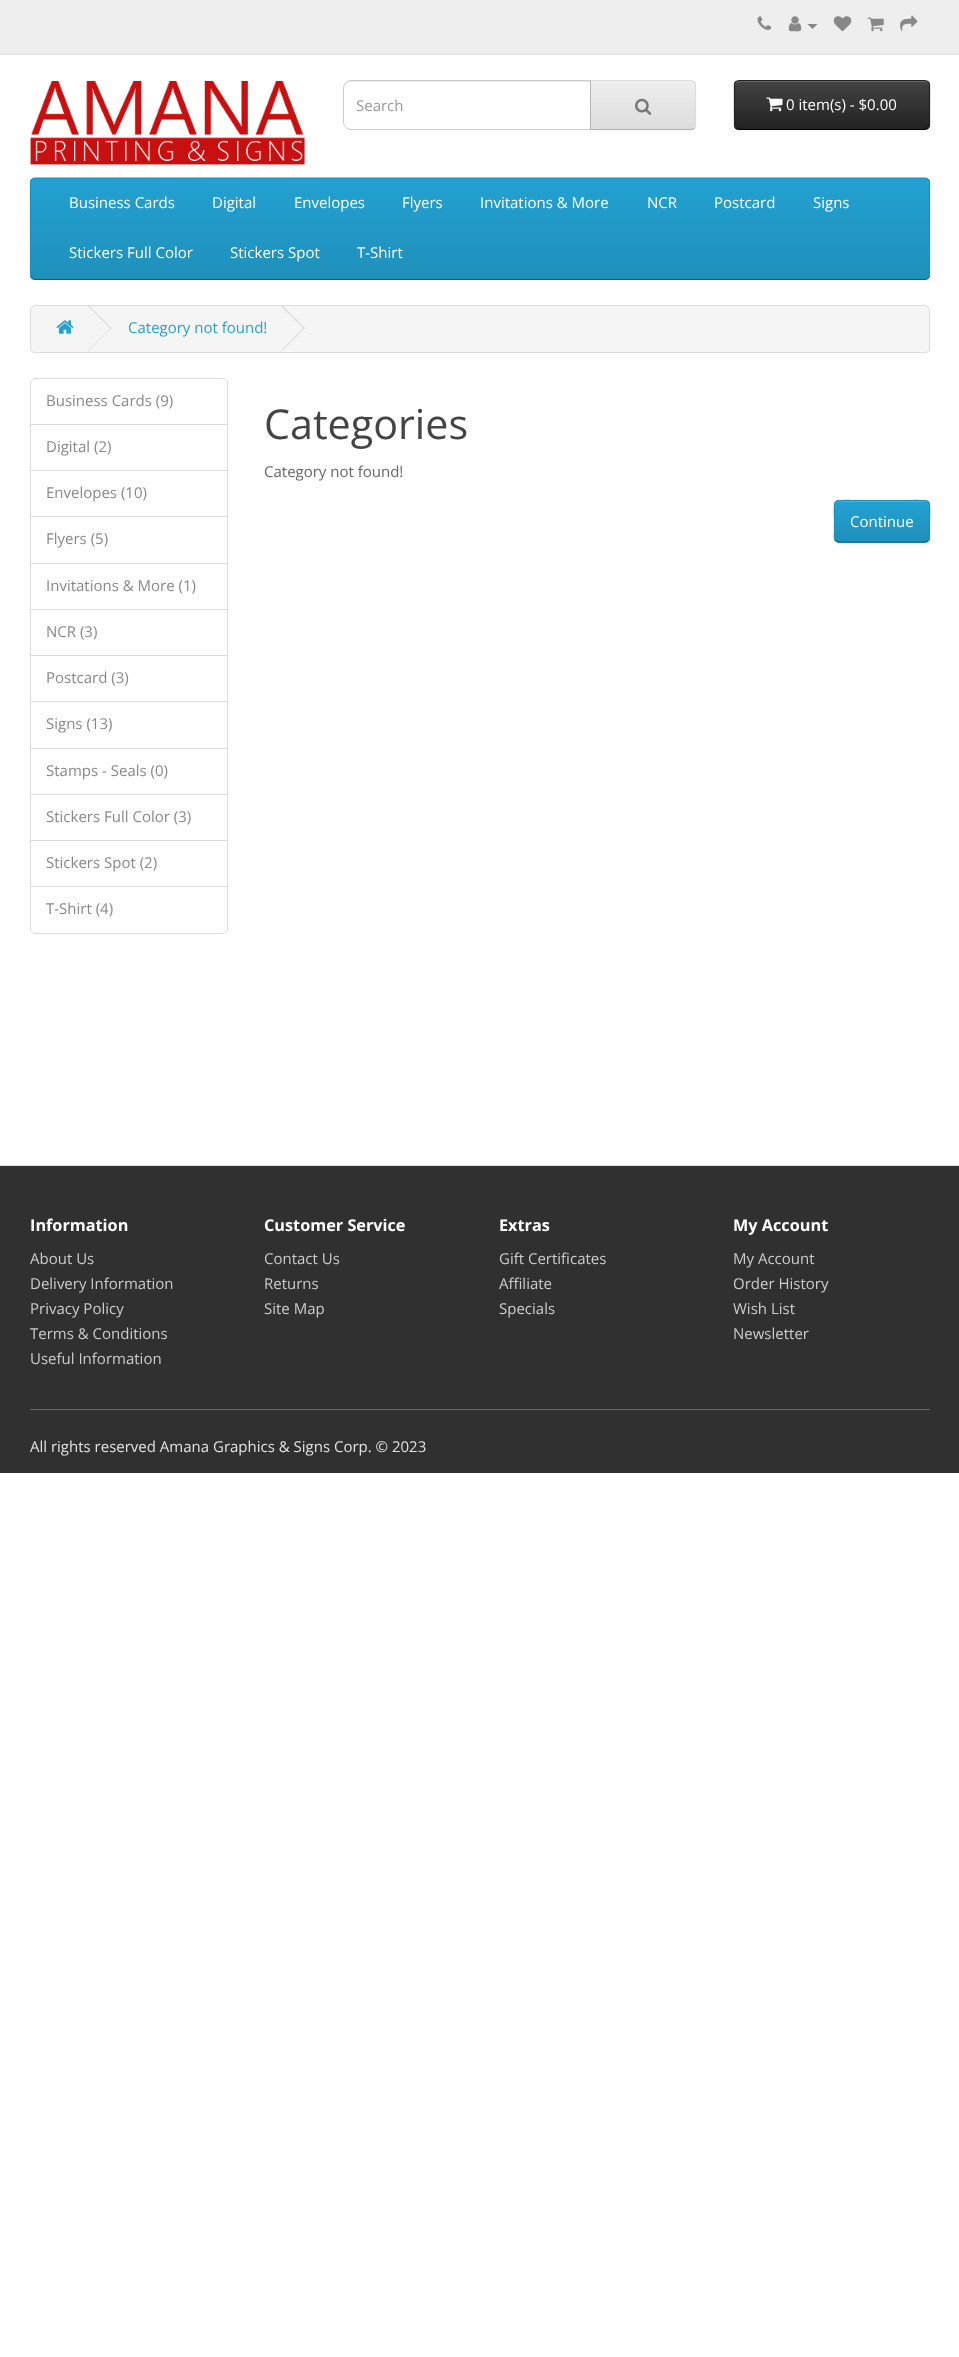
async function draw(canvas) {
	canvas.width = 959;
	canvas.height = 2357;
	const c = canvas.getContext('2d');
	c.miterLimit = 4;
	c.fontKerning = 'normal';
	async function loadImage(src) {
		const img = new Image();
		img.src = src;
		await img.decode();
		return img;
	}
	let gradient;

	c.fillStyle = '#fff';
	c.fillRect(0, 0, 959, 2357);
	c.fillStyle = '#eee';
	c.fillRect(0, 0, 959, 54);
	c.fillStyle = '#e2e2e2';
	c.fillRect(0, 54, 959, 1);
	c.drawImage(await loadImage('img1.png'), 757, 16, 15, 14);
	c.drawImage(await loadImage('img2.png'), 788, 16, 14, 16);
	c.fillStyle = '#888';
	c.beginPath();
	c.moveTo(807.5, 24);
	c.lineTo(817.5, 24);
	c.lineTo(812.5, 29);
	c.closePath();
	c.fill();
	c.drawImage(await loadImage('img3.png'), 833, 16, 19, 16);
	c.drawImage(await loadImage('img4.png'), 867, 17, 17, 15);
	c.drawImage(await loadImage('img5.png'), 900, 15, 18, 17);
	c.drawImage(await loadImage('img6.png'), 30, 80, 275, 85);
	c.fillStyle = '#ececec';
	c.beginPath();
	c.moveTo(350, 82);
	c.lineTo(590, 82);
	c.lineTo(590, 81);
	c.lineTo(350, 81);
	c.bezierCurveTo(347, 81, 344, 84, 344, 87);
	c.lineTo(344, 89);
	c.bezierCurveTo(344, 85, 347, 82, 350, 82);
	c.closePath();
	c.fill();
	c.beginPath();
	c.roundRect(343.5, 80.5, 247, 49, [7.5, 0, 0, 7.5]);
	c.strokeStyle = '#ccc';
	c.stroke();
	c.font = '15px Open Sans';
	c.fillStyle = '#999';
	c.fillText('Search', 356, 111);
	c.fillStyle = '#0000000d';
	c.filter = 'blur(1px)';
	c.beginPath();
	c.roundRect(590, 81, 106, 50, 5);
	c.fill();
	c.filter = 'none';
	c.save();
	c.beginPath();
	c.roundRect(590, 80, 106, 50, [0, 5, 5, 0]);
	c.clip();
	gradient = c.createLinearGradient(643, 81, 643, 129);
	gradient.addColorStop(0, '#eee');
	gradient.addColorStop(1, '#ddd');
	c.fillStyle = gradient;
	c.fillRect(591, 81, 105, 48);
	c.restore();
	c.fillStyle = '#f1f1f1';
	c.beginPath();
	c.moveTo(591, 82);
	c.lineTo(691, 82);
	c.bezierCurveTo(693, 82, 695, 84, 695, 86);
	c.lineTo(695, 85);
	c.bezierCurveTo(695, 83, 693, 81, 691, 81);
	c.lineTo(591, 81);
	c.closePath();
	c.fill();
	c.fillStyle = '#ddd';
	c.beginPath();
	c.moveTo(590, 80);
	c.lineTo(591, 81);
	c.lineTo(691, 81);
	c.lineTo(694, 82);
	c.lineTo(695, 82);
	c.bezierCurveTo(694, 81, 693, 80, 691, 80);
	c.closePath();
	c.fill();
	c.beginPath();
	c.moveTo(695, 82);
	c.bezierCurveTo(696, 82, 696, 84, 696, 85);
	c.lineTo(696, 125);
	c.bezierCurveTo(696, 126, 696, 128, 695, 128);
	c.lineTo(694, 128);
	c.bezierCurveTo(695, 127, 695, 126, 695, 125);
	c.lineTo(695, 85);
	c.bezierCurveTo(695, 84, 695, 83, 694, 82);
	c.closePath();
	c.fill();
	c.fillStyle = '#b3b3b3';
	c.beginPath();
	c.moveTo(691, 130);
	c.bezierCurveTo(693, 130, 694, 129, 695, 128);
	c.lineTo(694, 128);
	c.lineTo(691, 129);
	c.lineTo(591, 129);
	c.lineTo(590, 130);
	c.closePath();
	c.fill();
	c.fillStyle = '#b7b7b7';
	c.beginPath();
	c.moveTo(590, 80);
	c.lineTo(590, 130);
	c.lineTo(591, 129);
	c.lineTo(591, 81);
	c.closePath();
	c.fill();
	c.drawImage(await loadImage('img7.png'), 635, 98, 17, 17);
	c.fillStyle = '#0000000d';
	c.filter = 'blur(1px)';
	c.beginPath();
	c.roundRect(734, 81, 196, 50, 5);
	c.fill();
	c.filter = 'none';
	c.save();
	c.beginPath();
	c.roundRect(734, 80, 196, 50, 5);
	c.clip();
	gradient = c.createLinearGradient(832, 81, 832, 129);
	gradient.addColorStop(0, '#444');
	gradient.addColorStop(1, '#222');
	c.fillStyle = gradient;
	c.fillRect(734, 81, 196, 48);
	c.restore();
	c.fillStyle = '#696969';
	c.beginPath();
	c.moveTo(739, 82);
	c.lineTo(925, 82);
	c.bezierCurveTo(927, 82, 929, 84, 929, 86);
	c.lineTo(929, 85);
	c.bezierCurveTo(929, 83, 927, 81, 925, 81);
	c.lineTo(739, 81);
	c.bezierCurveTo(737, 81, 735, 83, 735, 85);
	c.lineTo(735, 86);
	c.bezierCurveTo(735, 84, 737, 82, 739, 82);
	c.closePath();
	c.fill();
	c.beginPath();
	c.moveTo(928, 128);
	c.bezierCurveTo(927.5, 129, 926, 129.5, 925, 129.5);
	c.lineTo(739, 129.5);
	c.bezierCurveTo(737.5, 129.5, 736.5, 129, 735.5, 128);
	c.strokeStyle = '#000';
	c.lineWidth = 1.2;
	c.stroke();
	c.beginPath();
	c.moveTo(735.5, 128);
	c.bezierCurveTo(735, 127.5, 734.5, 126, 734.5, 125);
	c.lineTo(734.5, 85);
	c.bezierCurveTo(734.5, 84, 735, 82.5, 735.5, 82);
	c.bezierCurveTo(736.5, 81, 737.5, 80.5, 739, 80.5);
	c.lineTo(925, 80.5);
	c.bezierCurveTo(926, 80.5, 927.5, 81, 928, 82);
	c.bezierCurveTo(929, 82.5, 929.5, 84, 929.5, 85);
	c.lineTo(929.5, 125);
	c.bezierCurveTo(929.5, 126, 929, 127.5, 928, 128);
	c.strokeStyle = '#222';
	c.stroke();
	c.drawImage(await loadImage('img8.png'), 766, 97, 17, 15);
	c.fillStyle = '#fff';
	c.fillText('0 item(s) - $0.00', 786, 110);
	c.fillStyle = '#229ac8';
	c.beginPath();
	c.roundRect(30, 178, 900, 102, 5);
	c.fill();
	c.save();
	c.beginPath();
	c.roundRect(30, 178, 900, 102, 5);
	c.clip();
	gradient = c.createLinearGradient(480, 179, 480, 279);
	gradient.addColorStop(0, '#23a1d1');
	gradient.addColorStop(1, '#1f90bb');
	c.fillStyle = gradient;
	c.fillRect(30, 179, 900, 100);
	c.restore();
	c.beginPath();
	c.moveTo(928, 278);
	c.bezierCurveTo(927.5, 279, 926, 279.5, 925, 279.5);
	c.lineTo(35, 279.5);
	c.bezierCurveTo(34, 279.5, 32.5, 279, 32, 278);
	c.strokeStyle = '#145e7a';
	c.stroke();
	c.beginPath();
	c.moveTo(32, 278);
	c.bezierCurveTo(31, 277.5, 30.5, 276, 30.5, 275);
	c.lineTo(30.5, 182.5);
	c.bezierCurveTo(30.5, 181.5, 31, 180, 32, 179.5);
	c.bezierCurveTo(32.5, 178.5, 34, 178, 35, 178);
	c.lineTo(925, 178);
	c.bezierCurveTo(926, 178, 927.5, 178.5, 928, 179.5);
	c.bezierCurveTo(929, 180, 929.5, 181.5, 929.5, 182.5);
	c.lineTo(929.5, 275);
	c.bezierCurveTo(929.5, 276, 929, 277.5, 928, 278);
	c.strokeStyle = '#1f90bb';
	c.stroke();
	c.fillStyle = '#fff';
	for (const [text, x, y] of [
		['Business Cards', 69, 208],
		['Digital', 212, 208],
		['Envelopes', 294, 208],
		['Flyers', 402, 208],
		['Invitations & More', 480, 208],
		['NCR', 647, 208],
		['Postcard', 714, 208],
		['Signs', 813, 208],
		['Stickers Full Color', 69, 258],
		['Stickers Spot', 230, 258],
		['T-Shirt', 357, 258],
	]) {
		c.fillText(text, x, y);
	}
	c.fillStyle = '#f5f5f5';
	c.beginPath();
	c.roundRect(30.5, 305.5, 899, 47, 4.5);
	c.fill();
	c.strokeStyle = '#ddd';
	c.lineWidth = 1;
	c.stroke();
	c.drawImage(await loadImage('img9.png'), 56, 320, 18, 14);
	c.fillStyle = '#ddd';
	c.beginPath();
	c.moveTo(88, 306);
	c.lineTo(88.5, 305);
	c.lineTo(111.5, 328);
	c.lineTo(111, 329);
	c.closePath();
	c.fill();
	c.beginPath();
	c.moveTo(88, 350.5);
	c.lineTo(111, 327.5);
	c.lineTo(111.5, 328);
	c.lineTo(88.5, 351);
	c.closePath();
	c.fill();
	c.fillStyle = '#23a1d1';
	c.fillText('Category not found!', 128, 333);
	c.fillStyle = '#ddd';
	c.beginPath();
	c.moveTo(281, 306);
	c.lineTo(282, 305);
	c.lineTo(305, 328);
	c.lineTo(304, 329);
	c.closePath();
	c.fill();
	c.beginPath();
	c.moveTo(281, 350.5);
	c.lineTo(304, 327.5);
	c.lineTo(305, 328);
	c.lineTo(282, 351);
	c.closePath();
	c.fill();
	c.beginPath();
	c.roundRect(30.5, 378.5, 197, 46, [4.5, 4.5, 0, 0]);
	c.stroke();
	c.fillStyle = '#888';
	c.fillText('Business Cards (9)', 46, 406);
	c.strokeRect(30.5, 424.5, 197, 46);
	c.fillText('Digital (2)', 46, 452);
	c.strokeRect(30.5, 470.5, 197, 47);
	c.fillText('Envelopes (10)', 46, 498);
	c.fillStyle = '#fff';
	c.fillRect(31, 517, 196, 1);
	c.strokeRect(30.5, 516.5, 197, 47);
	c.fillStyle = '#888';
	c.fillText('Flyers (5)', 46, 544);
	c.strokeRect(30.5, 563.5, 197, 46);
	c.fillText('Invitations & More (1)', 46, 591);
	c.strokeRect(30.5, 609.5, 197, 46);
	c.fillText('NCR (3)', 46, 637);
	c.strokeRect(30.5, 655.5, 197, 47);
	c.fillText('Postcard (3)', 46, 683);
	c.fillStyle = '#fff';
	c.fillRect(31, 702, 196, 1);
	c.strokeRect(30.5, 701.5, 197, 47);
	c.fillStyle = '#888';
	c.fillText('Signs (13)', 46, 729);
	c.strokeRect(30.5, 748.5, 197, 46);
	c.fillText('Stamps - Seals (0)', 46, 776);
	c.strokeRect(30.5, 794.5, 197, 46);
	c.fillText('Stickers Full Color (3)', 46, 822);
	c.strokeRect(30.5, 840.5, 197, 47);
	c.fillText('Stickers Spot (2)', 46, 868);
	c.fillStyle = '#fff';
	c.beginPath();
	c.roundRect(30.5, 886.5, 197, 47, [0, 0, 4.5, 4.5]);
	c.fill();
	c.stroke();
	c.fillStyle = '#888';
	c.fillText('T-Shirt (4)', 46, 914);
	c.font = '41.25px Open Sans';
	c.fillStyle = '#444';
	c.fillText('Categories', 264, 439);
	c.font = '15px Open Sans';
	c.fillStyle = '#666';
	c.fillText('Category not found!', 264, 477);
	c.fillStyle = '#0000000d';
	c.filter = 'blur(1px)';
	c.beginPath();
	c.roundRect(834, 501, 96, 43, 5);
	c.fill();
	c.filter = 'none';
	c.fillStyle = '#229ac8';
	c.beginPath();
	c.roundRect(834, 500, 96, 43, 5);
	c.fill();
	c.save();
	c.beginPath();
	c.roundRect(834, 500, 96, 43, 5);
	c.clip();
	gradient = c.createLinearGradient(882, 501, 882, 541);
	gradient.addColorStop(0, '#23a1d1');
	gradient.addColorStop(1, '#1f90bb');
	c.fillStyle = gradient;
	c.fillRect(834, 501, 96, 40);
	c.restore();
	c.fillStyle = '#ffffff33';
	c.beginPath();
	c.moveTo(839, 502);
	c.lineTo(925, 502);
	c.bezierCurveTo(927, 502, 929, 504, 929, 506);
	c.bezierCurveTo(929, 497, 915, 501, 911, 501);
	c.lineTo(853, 501);
	c.bezierCurveTo(849, 501, 835, 497, 835, 506);
	c.bezierCurveTo(835, 504, 837, 502, 839, 502);
	c.closePath();
	c.fill();
	c.beginPath();
	c.moveTo(928, 540.5);
	c.lineTo(925.5, 542);
	c.lineTo(838.5, 542);
	c.lineTo(835.5, 540.5);
	c.strokeStyle = '#145e7a';
	c.lineWidth = 1.2;
	c.stroke();
	c.beginPath();
	c.moveTo(835.5, 540.5);
	c.bezierCurveTo(833.5, 538.5, 834.5, 534.5, 834.5, 532);
	c.lineTo(834.5, 521);
	c.bezierCurveTo(834.5, 498.5, 830.5, 500.5, 853, 500.5);
	c.lineTo(910.5, 500.5);
	c.bezierCurveTo(933.5, 500.5, 929.5, 498.5, 929.5, 521);
	c.lineTo(929.5, 532);
	c.bezierCurveTo(929.5, 534.5, 930, 538.5, 928, 540.5);
	c.strokeStyle = '#1f90bb';
	c.stroke();
	c.fillStyle = '#fff';
	c.fillText('Continue', 850, 527);
	c.fillStyle = '#303030';
	c.fillRect(0, 1166, 959, 307);
	c.fillStyle = '#ddd';
	c.fillRect(0, 1165, 959, 1);
	c.font = 'bold 16.25px Open Sans';
	c.fillStyle = '#fff';
	c.fillText('Information', 30, 1231);
	c.font = '15px Open Sans';
	c.fillStyle = '#ccc';
	for (const [text, x, y] of [
		['About Us', 30, 1264],
		['Delivery Information', 30, 1289],
		['Privacy Policy', 30, 1314],
		['Terms & Conditions', 30, 1339],
		['Useful Information', 30, 1364],
	]) {
		c.fillText(text, x, y);
	}
	c.font = 'bold 16.25px Open Sans';
	c.fillStyle = '#fff';
	c.fillText('Customer Service', 264, 1231);
	c.font = '15px Open Sans';
	c.fillStyle = '#ccc';
	for (const [text, x, y] of [
		['Contact Us', 264, 1264],
		['Returns', 264, 1289],
		['Site Map', 264, 1314],
	]) {
		c.fillText(text, x, y);
	}
	c.font = 'bold 16.25px Open Sans';
	c.fillStyle = '#fff';
	c.fillText('Extras', 499, 1231);
	c.font = '15px Open Sans';
	c.fillStyle = '#ccc';
	for (const [text, x, y] of [
		['Gift Certificates', 499, 1264],
		['Affiliate', 499, 1289],
		['Specials', 499, 1314],
	]) {
		c.fillText(text, x, y);
	}
	c.font = 'bold 16.25px Open Sans';
	c.fillStyle = '#fff';
	c.fillText('My Account', 733, 1231);
	c.font = '15px Open Sans';
	c.fillStyle = '#ccc';
	for (const [text, x, y] of [
		['My Account', 733, 1264],
		['Order History', 733, 1289],
		['Wish List', 733, 1314],
		['Newsletter', 733, 1339],
	]) {
		c.fillText(text, x, y);
	}
	c.fillStyle = '#666';
	c.fillRect(30, 1409, 900, 1);
	c.fillStyle = '#e2e2e2';
	c.fillText('All rights reserved Amana Graphics & Signs Corp. © 2023', 30, 1452);
}

draw(document.querySelector('canvas'));
